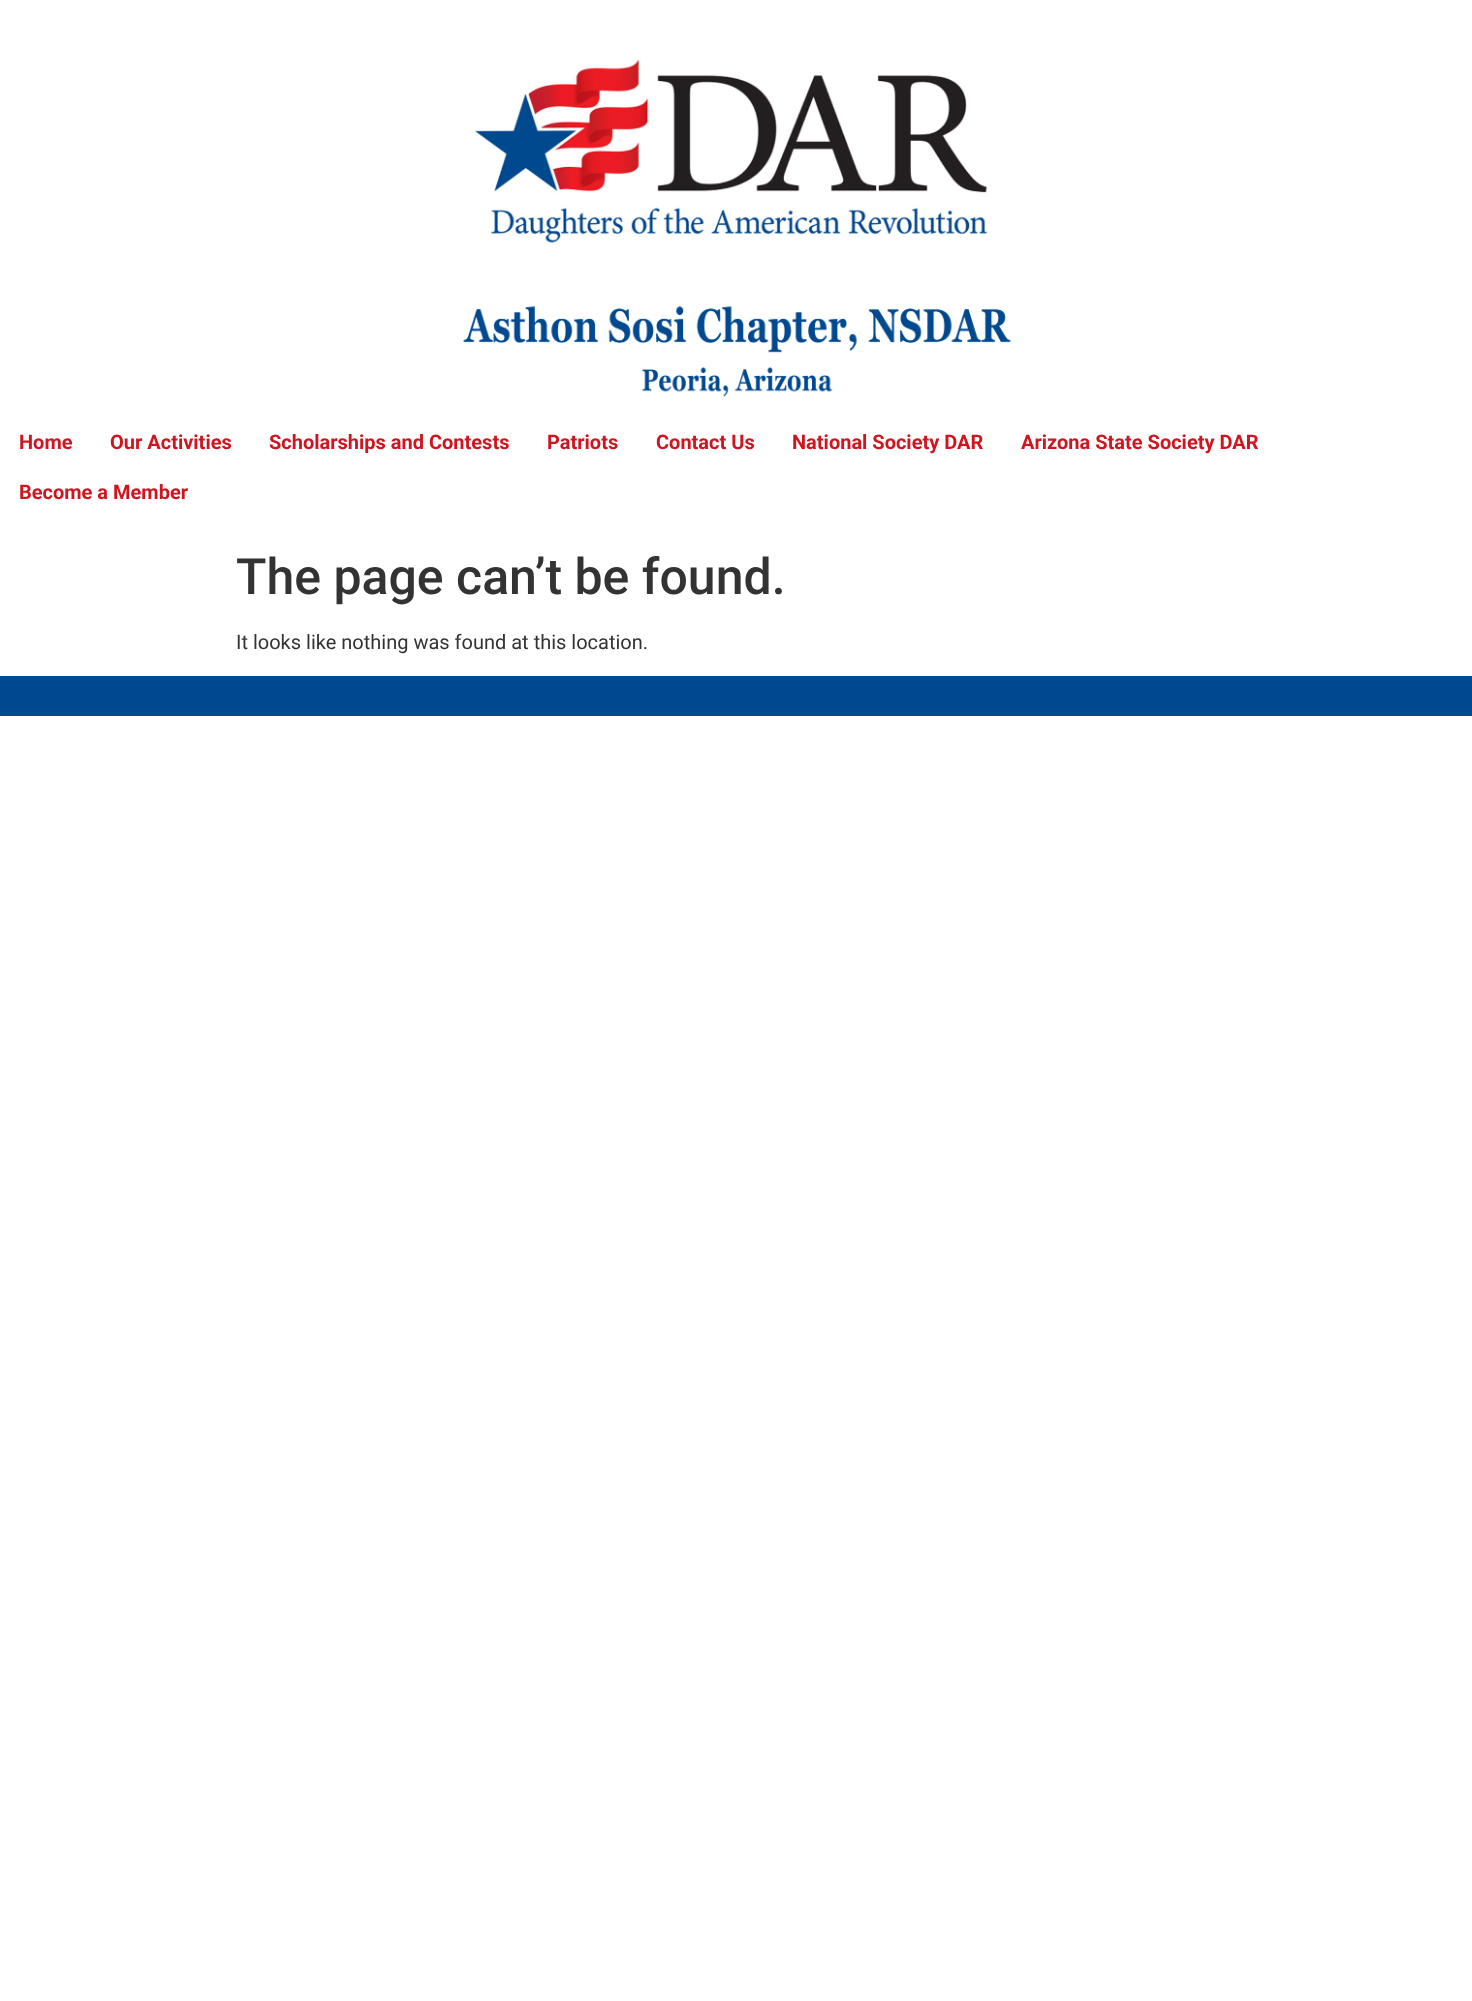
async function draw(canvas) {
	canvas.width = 1472;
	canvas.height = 2001;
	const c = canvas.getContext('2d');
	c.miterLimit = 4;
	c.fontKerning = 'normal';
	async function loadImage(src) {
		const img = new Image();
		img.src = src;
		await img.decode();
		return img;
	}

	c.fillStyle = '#fff';
	c.fillRect(0, 0, 1472, 2001);
	c.drawImage(await loadImage('img1.png'), 463, 59, 548, 338);
	c.font = 'bold 20px Roboto';
	c.fillStyle = '#cf1520';
	for (const [text, x, y] of [
		['Home', 19, 449],
		['Our Activities', 110, 449],
		['Scholarships and Contests', 269, 449],
		['Patriots', 547, 449],
		['Contact Us', 656, 449],
		['National Society DAR', 792, 449],
		['Arizona State Society DAR', 1021, 449],
		['Become a Member', 19, 499],
	]) {
		c.fillText(text, x, y);
	}
	c.font = '500 50px Roboto';
	c.fillStyle = '#333';
	c.fillText('The page can’t be found.', 236, 594);
	c.font = '20px Roboto';
	c.fillText('It looks like nothing was found at this location.', 236, 649);
	c.fillStyle = '#004990';
	c.fillRect(0, 676, 1472, 40);
}

draw(document.querySelector('canvas'));
